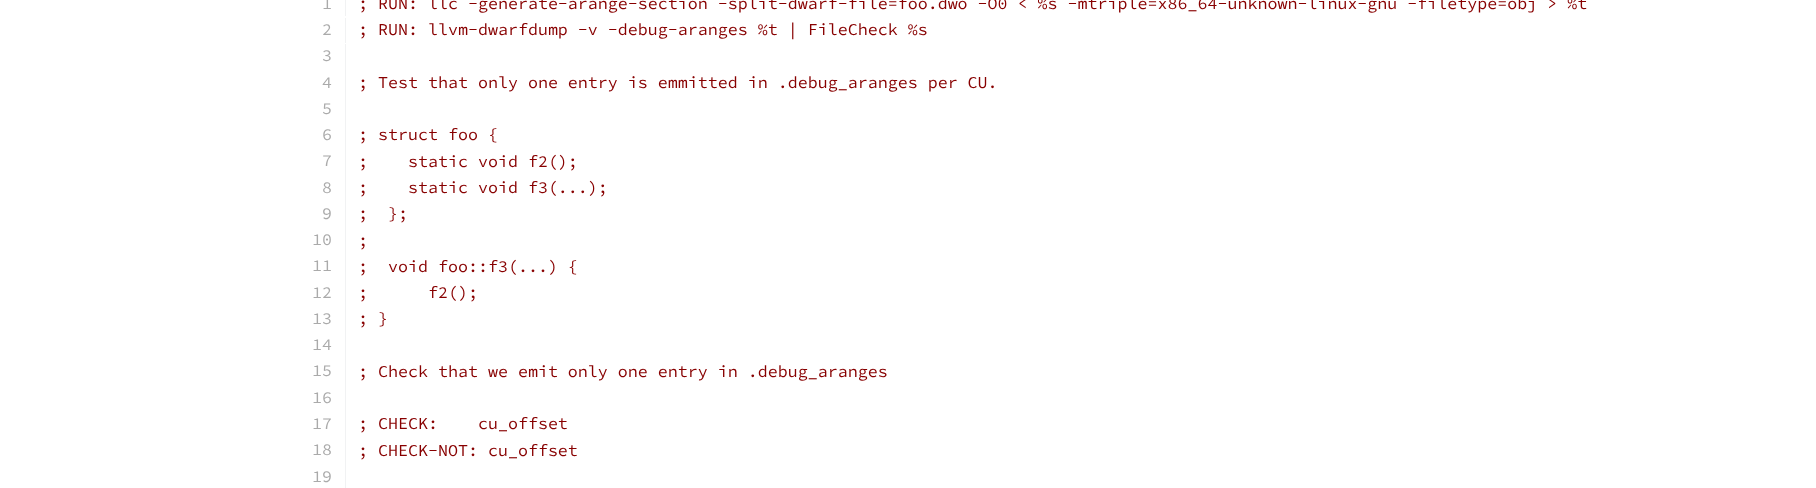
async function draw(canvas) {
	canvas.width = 1816;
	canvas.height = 488;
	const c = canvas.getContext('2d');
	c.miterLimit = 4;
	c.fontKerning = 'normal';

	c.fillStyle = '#fff';
	c.fillRect(0, 0, 1816, 488);
	c.fillStyle = '#f1f2f3';
	c.fillRect(345, 0, 1, 16);
	c.font = '200 16.67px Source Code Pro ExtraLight';
	c.fillStyle = '#aaa';
	c.fillText('1', 322, 9);
	c.fillStyle = '#800';
	c.fillText('; RUN: llc -generate-arange-section -split-dwarf-file=foo.dwo -O0 < %s -mtriple=x86_64-unknown-linux-gnu -filetype=obj > %t', 358, 9);
	c.fillStyle = '#f1f2f3';
	c.fillRect(345, 18, 1, 25);
	c.fillStyle = '#aaa';
	c.fillText('2', 322, 35);
	c.fillStyle = '#800';
	c.fillText('; RUN: llvm-dwarfdump -v -debug-aranges %t | FileCheck %s', 358, 35);
	c.fillStyle = '#f1f2f3';
	c.fillRect(345, 44, 1, 444);
	c.fillStyle = '#aaa';
	c.fillText('3', 322, 61);
	c.fillText('4', 322, 88);
	c.fillStyle = '#800';
	c.fillText('; Test that only one entry is emmitted in .debug_aranges per CU.', 358, 88);
	c.fillStyle = '#aaa';
	c.fillText('5', 322, 114);
	c.fillText('6', 322, 140);
	c.fillStyle = '#800';
	c.fillText('; struct foo {', 358, 140);
	c.fillStyle = '#aaa';
	c.fillText('7', 322, 166);
	c.fillStyle = '#800';
	c.fillText(';    static void f2();', 358, 167);
	c.fillStyle = '#aaa';
	c.fillText('8', 322, 193);
	c.fillStyle = '#800';
	c.fillText(';    static void f3(...);', 358, 193);
	c.fillStyle = '#aaa';
	c.fillText('9', 322, 219);
	c.fillStyle = '#800';
	c.fillText(';  };', 358, 219);
	c.fillStyle = '#aaa';
	c.fillText('10', 312, 245);
	c.fillStyle = '#800';
	c.fillText(';', 358, 246);
	c.fillStyle = '#aaa';
	c.fillText('11', 312, 271);
	c.fillStyle = '#800';
	c.fillText(';  void foo::f3(...) {', 358, 272);
	c.fillStyle = '#aaa';
	c.fillText('12', 312, 298);
	c.fillStyle = '#800';
	c.fillText(';      f2();', 358, 298);
	c.fillStyle = '#aaa';
	c.fillText('13', 312, 324);
	c.fillStyle = '#800';
	c.fillText('; }', 358, 324);
	c.fillStyle = '#aaa';
	c.fillText('14', 312, 350);
	c.fillText('15', 312, 376);
	c.fillStyle = '#800';
	c.fillText('; Check that we emit only one entry in .debug_aranges', 358, 377);
	c.fillStyle = '#aaa';
	c.fillText('16', 312, 403);
	c.fillText('17', 312, 429);
	c.fillStyle = '#800';
	c.fillText('; CHECK:    cu_offset', 358, 429);
	c.fillStyle = '#aaa';
	c.fillText('18', 312, 455);
	c.fillStyle = '#800';
	c.fillText('; CHECK-NOT: cu_offset', 358, 456);
	c.fillStyle = '#aaa';
	c.fillText('19', 312, 482);
}

draw(document.querySelector('canvas'));
